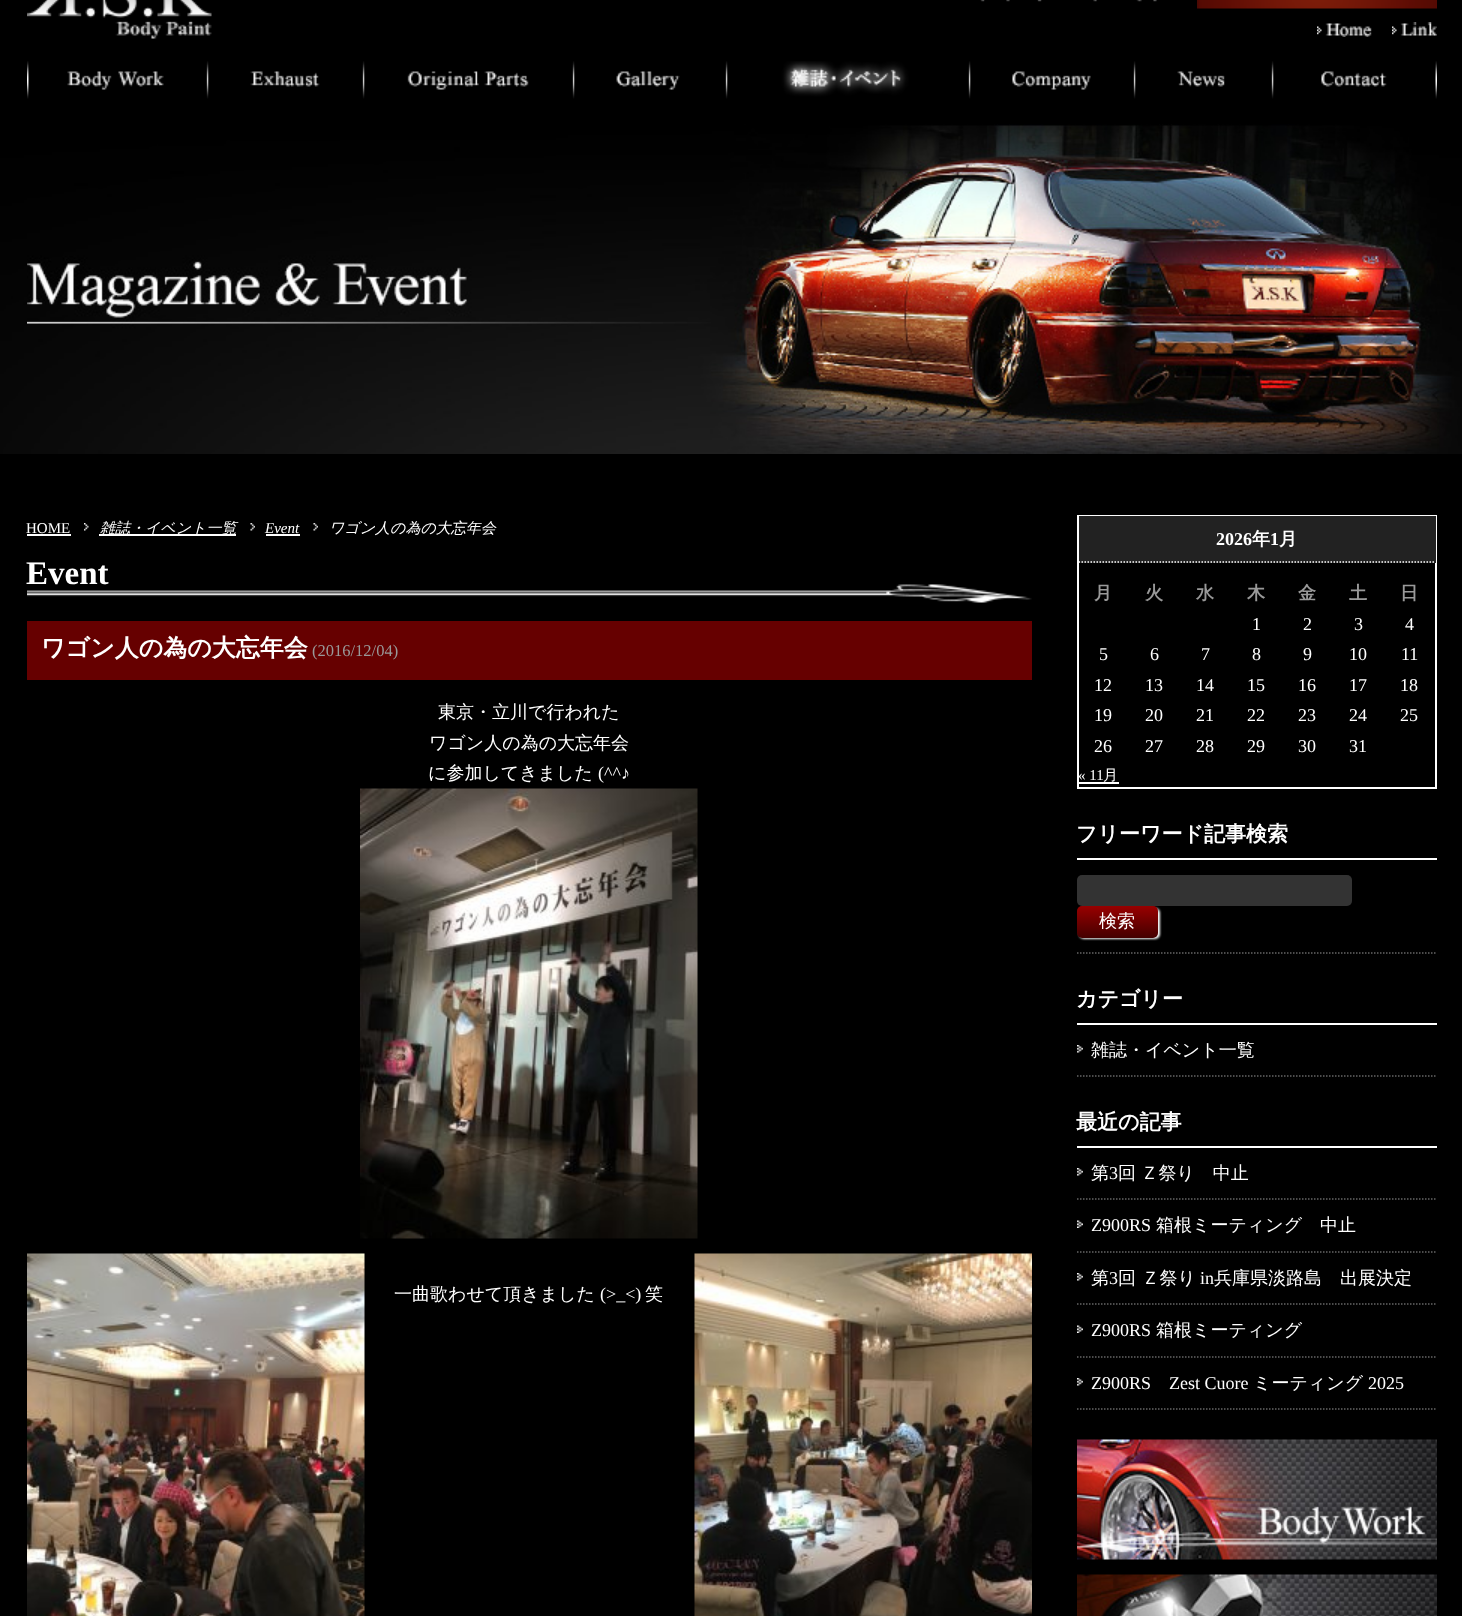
async function draw(canvas) {
	canvas.width = 1462;
	canvas.height = 1616;
	const c = canvas.getContext('2d');
	c.miterLimit = 4;
	c.fontKerning = 'normal';
	async function loadImage(src) {
		const img = new Image();
		img.src = src;
		await img.decode();
		return img;
	}
	let gradient;

	c.fillStyle = '#000';
	c.fillRect(0, 0, 1462, 1616);
	c.drawImage(await loadImage('img1.png'), 27, 0, 185, 39);
	c.drawImage(await loadImage('img2.png'), 980, 0, 177, 2);
	c.drawImage(await loadImage('img3.png'), 1197, 0, 240, 9);
	c.drawImage(await loadImage('img4.png'), 1317, 23, 55, 14);
	c.drawImage(await loadImage('img5.png'), 1392, 22, 45, 14);
	c.drawImage(await loadImage('img6.png'), 27, 61, 182, 38);
	c.drawImage(await loadImage('img7.png'), 208, 61, 157, 38);
	c.drawImage(await loadImage('img8.png'), 364, 61, 211, 38);
	c.drawImage(await loadImage('img9.png'), 574, 61, 154, 38);
	c.drawImage(await loadImage('img10.png'), 727, 61, 244, 38);
	c.drawImage(await loadImage('img11.png'), 970, 61, 166, 38);
	c.drawImage(await loadImage('img12.png'), 1135, 61, 139, 38);
	c.drawImage(await loadImage('img13.png'), 1273, 61, 164, 38);
	c.drawImage(await loadImage('img14.png'), 0, 124, 1462, 330);
	c.drawImage(await loadImage('img15.png'), 27, 125, 1410, 329);
	c.font = '15px Liberation Serif';
	c.fillStyle = '#fff';
	c.fillText('HOME', 26, 533);
	c.fillRect(27, 534, 44, 2);
	c.drawImage(await loadImage('img16.png'), 84, 523, 5, 8);
	c.fillRect(99, 534, 137, 2);
	c.font = 'italic 500 15px WenQuanYi Zen Hei';
	c.fillText('雑誌・イベント一覧', 100, 533);
	c.drawImage(await loadImage('img17.png'), 250, 523, 5, 8);
	c.font = 'italic 15px Liberation Serif';
	c.fillText('Event', 265, 533);
	c.fillRect(266, 534, 34, 2);
	c.drawImage(await loadImage('img17.png'), 313, 523, 5, 8);
	c.font = 'italic 500 15px WenQuanYi Zen Hei';
	c.fillText('ワゴン人の為の大忘年会', 329, 533);
	c.drawImage(await loadImage('img18.png'), 27, 584, 1005, 19);
	c.font = 'bold 33px Liberation Serif';
	c.fillText('Event', 26, 584);
	c.fillStyle = '#600';
	c.fillRect(27, 621, 1005, 59);
	c.font = 'bold 24px WenQuanYi Zen Hei';
	c.fillStyle = '#fff';
	c.fillText('ワゴン人の為の大忘年会', 41, 656);
	c.font = '16.5px Liberation Serif';
	c.fillStyle = '#999';
	c.fillText('(2016/12/04)', 312, 656);
	c.font = '500 18px WenQuanYi Zen Hei';
	c.fillStyle = '#fff';
	for (const [text, x, y] of [
		['東京・立川で行われた', 438, 718],
		['ワゴン人の為の大忘年会', 429, 749],
		['に参加してきました', 428, 779],
	]) {
		c.fillText(text, x, y);
	}
	c.font = '18px Liberation Serif';
	c.fillText('(^^♪', 598, 779);
	c.drawImage(await loadImage('img19.png'), 360, 788, 338, 451);
	c.drawImage(await loadImage('img20.png'), 27, 1253, 338, 363);
	c.drawImage(await loadImage('img21.png'), 694, 1253, 338, 363);
	c.font = '500 18px WenQuanYi Zen Hei';
	c.fillText('一曲歌わせて頂きました', 394, 1300);
	c.font = '18px Liberation Serif';
	c.fillText('(>_<)', 600, 1300);
	c.font = '500 18px WenQuanYi Zen Hei';
	c.fillText('笑', 645, 1300);
	c.strokeStyle = '#fff';
	c.lineWidth = 2;
	c.strokeRect(1078, 516, 358, 272);
	c.fillStyle = '#222';
	c.fillRect(1079, 516, 357, 47);
	c.beginPath();
	c.moveTo(1078.5, 562);
	c.lineTo(1435.5, 562);
	c.lineWidth = 1.5;
	c.setLineDash([1.5, 1.5]);
	c.stroke();
	c.font = 'bold 18px Liberation Serif';
	c.fillStyle = '#fff';
	c.fillText('2026', 1216, 545);
	c.font = 'bold 18px WenQuanYi Zen Hei';
	c.fillText('年', 1252, 545);
	c.font = 'bold 18px Liberation Serif';
	c.fillText('1', 1270, 545);
	c.font = 'bold 18px WenQuanYi Zen Hei';
	c.fillText('月', 1279, 545);
	c.fillStyle = '#999';
	for (const [text, x, y] of [
		['月', 1094, 599],
		['火', 1145, 599],
		['水', 1196, 599],
		['木', 1247, 599],
		['金', 1298, 599],
		['土', 1349, 599],
		['日', 1400, 599],
	]) {
		c.fillText(text, x, y);
	}
	c.font = '18px Liberation Serif';
	c.fillStyle = '#fff';
	for (const [text, x, y] of [
		['1', 1252, 630],
		['2', 1303, 630],
		['3', 1354, 630],
		['4', 1405, 630],
		['5', 1099, 660],
		['6', 1150, 660],
		['7', 1201, 660],
		['8', 1252, 660],
		['9', 1303, 660],
		['10', 1349, 660],
		['11', 1401, 660],
		['12', 1094, 691],
		['13', 1145, 691],
		['14', 1196, 691],
		['15', 1247, 691],
		['16', 1298, 691],
		['17', 1349, 691],
		['18', 1400, 691],
		['19', 1094, 721],
		['20', 1145, 721],
		['21', 1196, 721],
		['22', 1247, 721],
		['23', 1298, 721],
		['24', 1349, 721],
		['25', 1400, 721],
		['26', 1094, 752],
		['27', 1145, 752],
		['28', 1196, 752],
		['29', 1247, 752],
		['30', 1298, 752],
		['31', 1349, 752],
	]) {
		c.fillText(text, x, y);
	}
	c.font = '15px Liberation Serif';
	c.fillText('« 11', 1078, 780);
	c.fillRect(1079, 782, 40, 2);
	c.font = '500 15px WenQuanYi Zen Hei';
	c.fillText('月', 1103, 780);
	c.beginPath();
	c.moveTo(1077, 953);
	c.lineTo(1437, 953);
	c.strokeStyle = '#666';
	c.stroke();
	c.fillRect(1077, 858, 360, 2);
	c.font = 'bold 21px WenQuanYi Zen Hei';
	c.fillText('フリーワード記事検索', 1076, 841);
	c.fillStyle = '#333';
	c.beginPath();
	c.roundRect(1077, 875, 275, 31, 5);
	c.fill();
	c.fillStyle = '#fff';
	c.filter = 'blur(1px)';
	c.beginPath();
	c.roundRect(1079, 908, 81, 31, 5);
	c.fill();
	c.filter = 'none';
	gradient = c.createLinearGradient(1077, 906, 1077, 938);
	gradient.addColorStop(0, '#900');
	gradient.addColorStop(1, '#400');
	c.fillStyle = gradient;
	c.beginPath();
	c.roundRect(1077, 906, 81, 32, 5);
	c.fill();
	c.font = '500 18px WenQuanYi Zen Hei';
	c.fillStyle = '#fff';
	c.fillText('検索', 1099, 927);
	c.fillRect(1077, 1023, 360, 2);
	c.font = 'bold 21px WenQuanYi Zen Hei';
	c.fillText('カテゴリー', 1076, 1006);
	c.beginPath();
	c.moveTo(1077, 1076);
	c.lineTo(1437, 1076);
	c.stroke();
	c.drawImage(await loadImage('img22.png'), 1077, 1045, 6, 8);
	c.font = '500 18px WenQuanYi Zen Hei';
	c.fillText('雑誌・イベント一覧', 1091, 1056);
	c.fillRect(1077, 1146, 360, 2);
	c.font = 'bold 21px WenQuanYi Zen Hei';
	c.fillText('最近の記事', 1076, 1129);
	c.beginPath();
	c.moveTo(1077, 1199);
	c.lineTo(1437, 1199);
	c.stroke();
	c.drawImage(await loadImage('img22.png'), 1077, 1168, 6, 8);
	c.font = '500 18px WenQuanYi Zen Hei';
	c.fillText('第', 1091, 1179);
	c.font = '18px Liberation Serif';
	c.fillText('3', 1109, 1179);
	c.wordSpacing = '-1px';
	c.font = '500 18px WenQuanYi Zen Hei';
	c.fillText('回 Ｚ祭り　中止', 1118, 1179);
	c.beginPath();
	c.moveTo(1077, 1252);
	c.lineTo(1437, 1252);
	c.stroke();
	c.drawImage(await loadImage('img23.png'), 1077, 1220, 6, 8);
	c.wordSpacing = '0px';
	c.font = '18px Liberation Serif';
	c.fillText('Z900RS', 1091, 1231);
	c.font = '500 18px WenQuanYi Zen Hei';
	c.fillText('箱根ミーティング　中止', 1156, 1231);
	c.beginPath();
	c.moveTo(1077, 1304);
	c.lineTo(1437, 1304);
	c.stroke();
	c.drawImage(await loadImage('img22.png'), 1077, 1273, 6, 8);
	c.fillText('第', 1091, 1284);
	c.font = '18px Liberation Serif';
	c.fillText('3', 1109, 1284);
	c.font = '500 18px WenQuanYi Zen Hei';
	c.fillText('回 Ｚ祭り', 1118, 1284);
	c.font = '18px Liberation Serif';
	c.fillText('in', 1200, 1284);
	c.font = '500 18px WenQuanYi Zen Hei';
	c.fillText('兵庫県淡路島　出展決定', 1214, 1284);
	c.beginPath();
	c.moveTo(1077, 1357);
	c.lineTo(1437, 1357);
	c.stroke();
	c.drawImage(await loadImage('img23.png'), 1077, 1325, 6, 8);
	c.font = '18px Liberation Serif';
	c.fillText('Z900RS', 1091, 1336);
	c.font = '500 18px WenQuanYi Zen Hei';
	c.fillText('箱根ミーティング', 1156, 1336);
	c.beginPath();
	c.moveTo(1077, 1409);
	c.lineTo(1437, 1409);
	c.stroke();
	c.drawImage(await loadImage('img22.png'), 1077, 1378, 6, 8);
	c.font = '18px Liberation Serif';
	c.fillText('Z900RS', 1091, 1389);
	c.fillText('Zest Cuore', 1169, 1389);
	c.font = '500 18px WenQuanYi Zen Hei';
	c.fillText('ミーティング', 1253, 1389);
	c.font = '18px Liberation Serif';
	c.fillText('2025', 1368, 1389);
	c.drawImage(await loadImage('img24.png'), 1077, 1439, 360, 121);
	c.drawImage(await loadImage('img25.png'), 1077, 1574, 360, 42);
}

draw(document.querySelector('canvas'));
